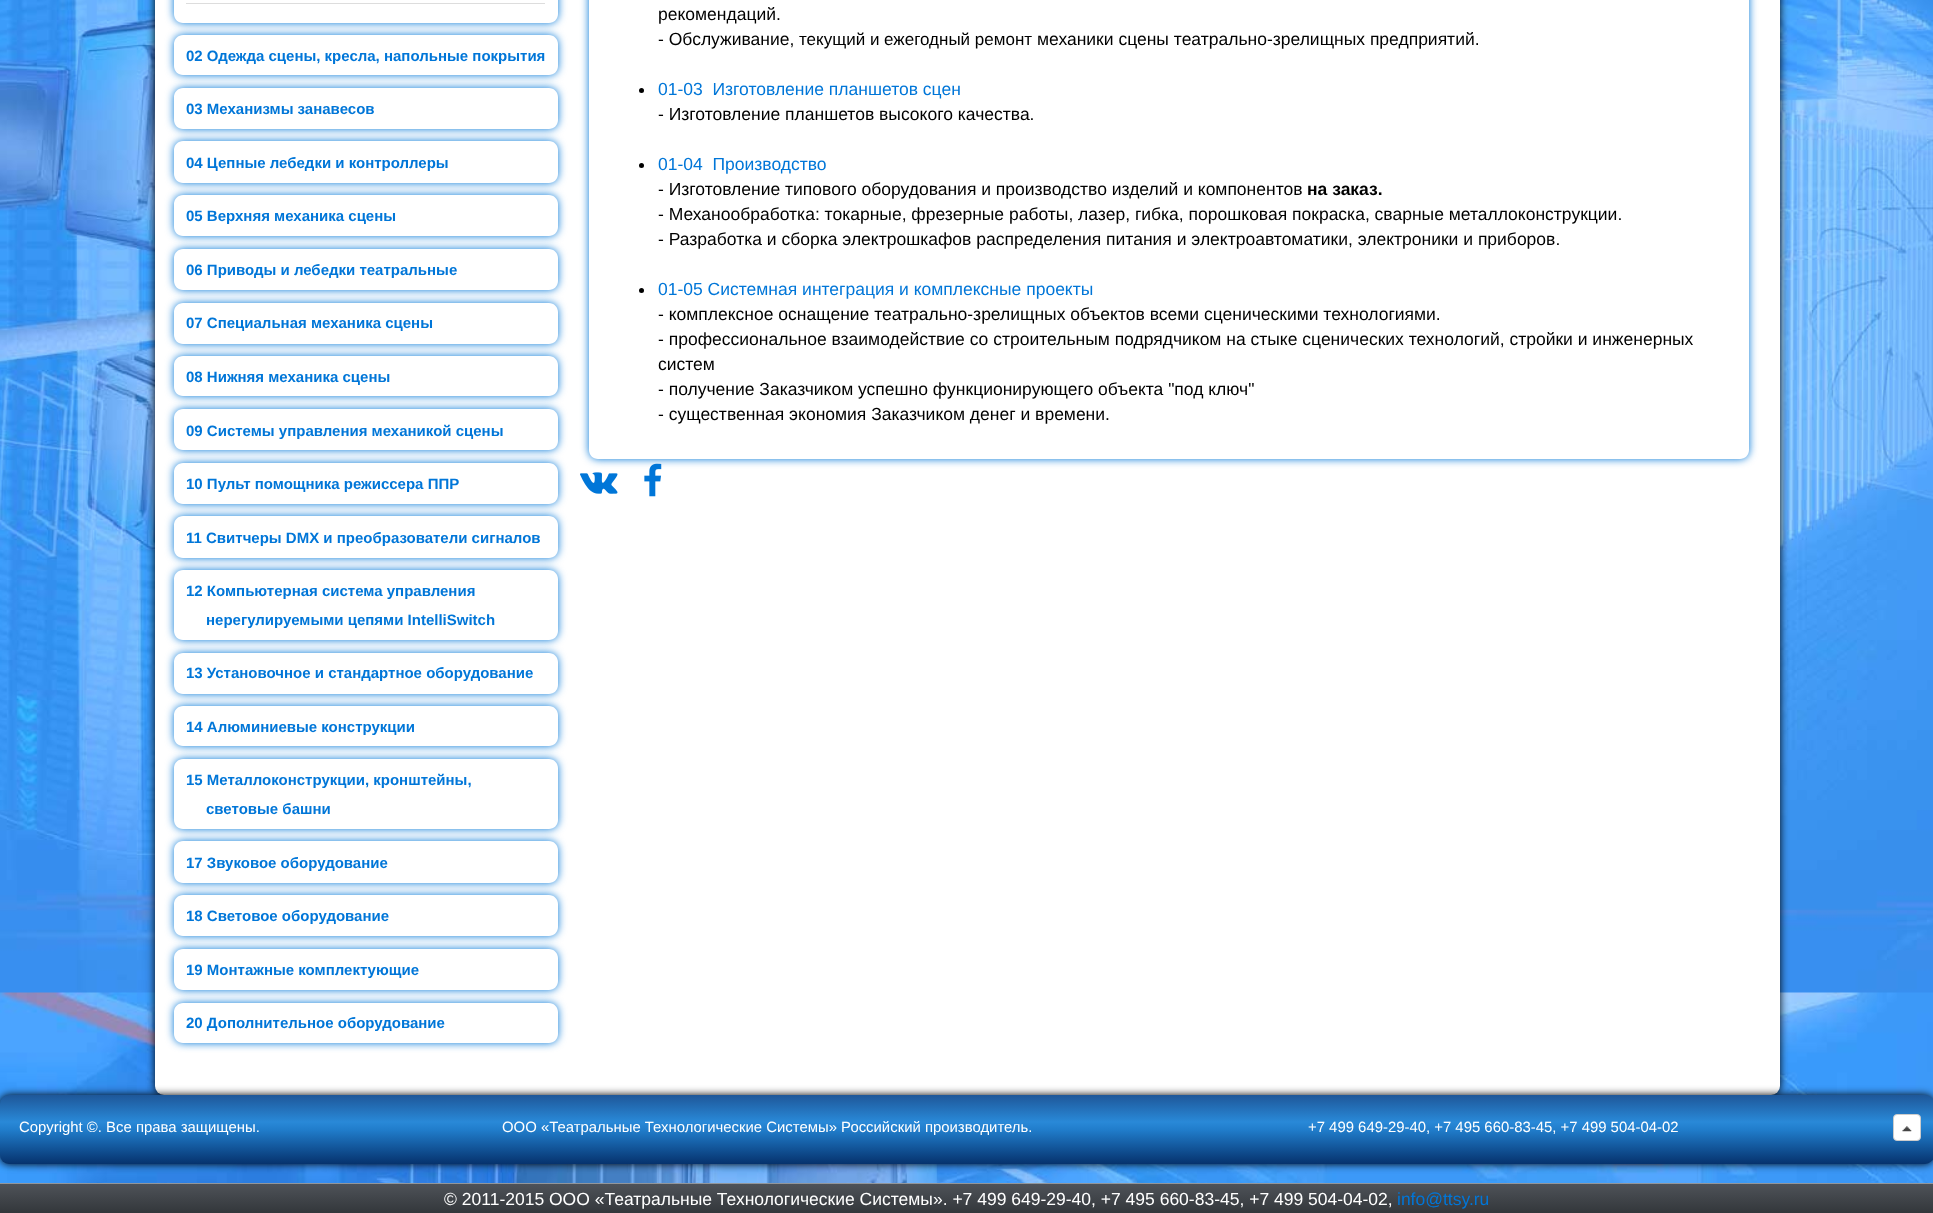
async function draw(canvas) {
	canvas.width = 1933;
	canvas.height = 1213;
	const c = canvas.getContext('2d');
	c.miterLimit = 4;
	c.fontKerning = 'normal';
	async function loadImage(src) {
		const img = new Image();
		img.src = src;
		await img.decode();
		return img;
	}
	let gradient;

	c.fillStyle = '#fff';
	c.fillRect(0, 0, 1933, 1213);
	c.drawImage(await loadImage('img1.png'), 0, 0, 1933, 1183);
	c.fillStyle = '#000';
	c.filter = 'blur(4.5px)';
	c.beginPath();
	c.roundRect(155, -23, 1625, 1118, 9);
	c.fill();
	c.filter = 'none';
	c.fillStyle = '#fff';
	c.beginPath();
	c.roundRect(155, -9, 1625, 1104, 9);
	c.fill();
	c.save();
	c.beginPath();
	c.moveTo(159, 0);
	c.lineTo(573, 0);
	c.lineTo(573, 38);
	c.lineTo(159, 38);
	c.closePath();
	c.moveTo(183, -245);
	c.lineTo(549, -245);
	c.bezierCurveTo(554, -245, 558, -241, 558, -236);
	c.lineTo(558, 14);
	c.bezierCurveTo(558, 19, 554, 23, 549, 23);
	c.lineTo(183, 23);
	c.bezierCurveTo(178, 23, 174, 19, 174, 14);
	c.lineTo(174, -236);
	c.bezierCurveTo(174, -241, 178, -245, 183, -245);
	c.closePath();
	c.clip('evenodd');
	c.fillStyle = '#0076d8';
	c.filter = 'blur(4.5px)';
	c.beginPath();
	c.roundRect(174, -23, 384, 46, 9);
	c.fill();
	c.filter = 'none';
	c.restore();
	c.fillStyle = '#ddd';
	c.fillRect(186, 3, 359, 1);
	c.save();
	c.beginPath();
	c.moveTo(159, 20);
	c.lineTo(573, 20);
	c.lineTo(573, 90);
	c.lineTo(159, 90);
	c.closePath();
	c.moveTo(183, 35);
	c.lineTo(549, 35);
	c.bezierCurveTo(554, 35, 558, 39, 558, 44);
	c.lineTo(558, 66);
	c.bezierCurveTo(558, 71, 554, 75, 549, 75);
	c.lineTo(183, 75);
	c.bezierCurveTo(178, 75, 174, 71, 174, 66);
	c.lineTo(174, 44);
	c.bezierCurveTo(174, 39, 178, 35, 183, 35);
	c.closePath();
	c.clip('evenodd');
	c.fillStyle = '#0076d8';
	c.filter = 'blur(4.5px)';
	c.beginPath();
	c.roundRect(174, 35, 384, 40, 9);
	c.fill();
	c.filter = 'none';
	c.restore();
	c.font = 'bold 15px Liberation Sans';
	c.fillStyle = '#0076d8';
	c.fillText('02 Одежда сцены, кресла, напольные покрытия', 186, 61);
	c.save();
	c.beginPath();
	c.moveTo(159, 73);
	c.lineTo(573, 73);
	c.lineTo(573, 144);
	c.lineTo(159, 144);
	c.closePath();
	c.moveTo(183, 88);
	c.lineTo(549, 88);
	c.bezierCurveTo(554, 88, 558, 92, 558, 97);
	c.lineTo(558, 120);
	c.bezierCurveTo(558, 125, 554, 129, 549, 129);
	c.lineTo(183, 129);
	c.bezierCurveTo(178, 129, 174, 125, 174, 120);
	c.lineTo(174, 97);
	c.bezierCurveTo(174, 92, 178, 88, 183, 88);
	c.closePath();
	c.clip('evenodd');
	c.filter = 'blur(4.5px)';
	c.beginPath();
	c.roundRect(174, 88, 384, 41, 9);
	c.fill();
	c.filter = 'none';
	c.restore();
	c.fillText('03 Механизмы занавесов', 186, 114);
	c.save();
	c.beginPath();
	c.moveTo(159, 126);
	c.lineTo(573, 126);
	c.lineTo(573, 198);
	c.lineTo(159, 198);
	c.closePath();
	c.moveTo(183, 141);
	c.lineTo(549, 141);
	c.bezierCurveTo(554, 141, 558, 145, 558, 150);
	c.lineTo(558, 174);
	c.bezierCurveTo(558, 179, 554, 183, 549, 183);
	c.lineTo(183, 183);
	c.bezierCurveTo(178, 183, 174, 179, 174, 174);
	c.lineTo(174, 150);
	c.bezierCurveTo(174, 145, 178, 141, 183, 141);
	c.closePath();
	c.clip('evenodd');
	c.filter = 'blur(4.5px)';
	c.beginPath();
	c.roundRect(174, 141, 384, 42, 9);
	c.fill();
	c.filter = 'none';
	c.restore();
	c.fillText('04 Цепные лебедки и контроллеры', 186, 168);
	c.save();
	c.beginPath();
	c.moveTo(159, 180);
	c.lineTo(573, 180);
	c.lineTo(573, 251);
	c.lineTo(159, 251);
	c.closePath();
	c.moveTo(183, 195);
	c.lineTo(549, 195);
	c.bezierCurveTo(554, 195, 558, 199, 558, 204);
	c.lineTo(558, 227);
	c.bezierCurveTo(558, 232, 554, 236, 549, 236);
	c.lineTo(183, 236);
	c.bezierCurveTo(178, 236, 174, 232, 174, 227);
	c.lineTo(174, 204);
	c.bezierCurveTo(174, 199, 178, 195, 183, 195);
	c.closePath();
	c.clip('evenodd');
	c.filter = 'blur(4.5px)';
	c.beginPath();
	c.roundRect(174, 195, 384, 41, 9);
	c.fill();
	c.filter = 'none';
	c.restore();
	c.fillText('05 Верхняя механика сцены', 186, 221);
	c.save();
	c.beginPath();
	c.moveTo(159, 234);
	c.lineTo(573, 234);
	c.lineTo(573, 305);
	c.lineTo(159, 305);
	c.closePath();
	c.moveTo(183, 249);
	c.lineTo(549, 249);
	c.bezierCurveTo(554, 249, 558, 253, 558, 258);
	c.lineTo(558, 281);
	c.bezierCurveTo(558, 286, 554, 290, 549, 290);
	c.lineTo(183, 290);
	c.bezierCurveTo(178, 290, 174, 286, 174, 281);
	c.lineTo(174, 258);
	c.bezierCurveTo(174, 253, 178, 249, 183, 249);
	c.closePath();
	c.clip('evenodd');
	c.filter = 'blur(4.5px)';
	c.beginPath();
	c.roundRect(174, 249, 384, 41, 9);
	c.fill();
	c.filter = 'none';
	c.restore();
	c.fillText('06 Приводы и лебедки театральные', 186, 275);
	c.save();
	c.beginPath();
	c.moveTo(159, 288);
	c.lineTo(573, 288);
	c.lineTo(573, 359);
	c.lineTo(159, 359);
	c.closePath();
	c.moveTo(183, 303);
	c.lineTo(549, 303);
	c.bezierCurveTo(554, 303, 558, 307, 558, 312);
	c.lineTo(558, 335);
	c.bezierCurveTo(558, 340, 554, 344, 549, 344);
	c.lineTo(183, 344);
	c.bezierCurveTo(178, 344, 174, 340, 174, 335);
	c.lineTo(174, 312);
	c.bezierCurveTo(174, 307, 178, 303, 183, 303);
	c.closePath();
	c.clip('evenodd');
	c.filter = 'blur(4.5px)';
	c.beginPath();
	c.roundRect(174, 303, 384, 41, 9);
	c.fill();
	c.filter = 'none';
	c.restore();
	c.fillText('07 Специальная механика сцены', 186, 328);
	c.save();
	c.beginPath();
	c.moveTo(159, 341);
	c.lineTo(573, 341);
	c.lineTo(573, 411);
	c.lineTo(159, 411);
	c.closePath();
	c.moveTo(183, 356);
	c.lineTo(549, 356);
	c.bezierCurveTo(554, 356, 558, 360, 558, 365);
	c.lineTo(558, 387);
	c.bezierCurveTo(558, 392, 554, 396, 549, 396);
	c.lineTo(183, 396);
	c.bezierCurveTo(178, 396, 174, 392, 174, 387);
	c.lineTo(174, 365);
	c.bezierCurveTo(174, 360, 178, 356, 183, 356);
	c.closePath();
	c.clip('evenodd');
	c.filter = 'blur(4.5px)';
	c.beginPath();
	c.roundRect(174, 356, 384, 40, 9);
	c.fill();
	c.filter = 'none';
	c.restore();
	c.fillText('08 Нижняя механика сцены', 186, 382);
	c.save();
	c.beginPath();
	c.moveTo(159, 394);
	c.lineTo(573, 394);
	c.lineTo(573, 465);
	c.lineTo(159, 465);
	c.closePath();
	c.moveTo(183, 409);
	c.lineTo(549, 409);
	c.bezierCurveTo(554, 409, 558, 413, 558, 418);
	c.lineTo(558, 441);
	c.bezierCurveTo(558, 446, 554, 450, 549, 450);
	c.lineTo(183, 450);
	c.bezierCurveTo(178, 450, 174, 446, 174, 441);
	c.lineTo(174, 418);
	c.bezierCurveTo(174, 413, 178, 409, 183, 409);
	c.closePath();
	c.clip('evenodd');
	c.filter = 'blur(4.5px)';
	c.beginPath();
	c.roundRect(174, 409, 384, 41, 9);
	c.fill();
	c.filter = 'none';
	c.restore();
	c.fillText('09 Системы управления механикой сцены', 186, 436);
	c.save();
	c.beginPath();
	c.moveTo(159, 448);
	c.lineTo(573, 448);
	c.lineTo(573, 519);
	c.lineTo(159, 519);
	c.closePath();
	c.moveTo(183, 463);
	c.lineTo(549, 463);
	c.bezierCurveTo(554, 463, 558, 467, 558, 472);
	c.lineTo(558, 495);
	c.bezierCurveTo(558, 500, 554, 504, 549, 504);
	c.lineTo(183, 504);
	c.bezierCurveTo(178, 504, 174, 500, 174, 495);
	c.lineTo(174, 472);
	c.bezierCurveTo(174, 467, 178, 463, 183, 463);
	c.closePath();
	c.clip('evenodd');
	c.filter = 'blur(4.5px)';
	c.beginPath();
	c.roundRect(174, 463, 384, 41, 9);
	c.fill();
	c.filter = 'none';
	c.restore();
	c.fillText('10 Пульт помощника режиссера ППР', 186, 489);
	c.save();
	c.beginPath();
	c.moveTo(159, 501);
	c.lineTo(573, 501);
	c.lineTo(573, 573);
	c.lineTo(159, 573);
	c.closePath();
	c.moveTo(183, 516);
	c.lineTo(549, 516);
	c.bezierCurveTo(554, 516, 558, 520, 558, 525);
	c.lineTo(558, 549);
	c.bezierCurveTo(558, 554, 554, 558, 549, 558);
	c.lineTo(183, 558);
	c.bezierCurveTo(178, 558, 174, 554, 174, 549);
	c.lineTo(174, 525);
	c.bezierCurveTo(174, 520, 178, 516, 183, 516);
	c.closePath();
	c.clip('evenodd');
	c.filter = 'blur(4.5px)';
	c.beginPath();
	c.roundRect(174, 516, 384, 42, 9);
	c.fill();
	c.filter = 'none';
	c.restore();
	c.fillText('11 Свитчеры DMX и преобразователи сигналов', 186, 543);
	c.save();
	c.beginPath();
	c.moveTo(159, 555);
	c.lineTo(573, 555);
	c.lineTo(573, 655);
	c.lineTo(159, 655);
	c.closePath();
	c.moveTo(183, 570);
	c.lineTo(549, 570);
	c.bezierCurveTo(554, 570, 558, 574, 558, 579);
	c.lineTo(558, 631);
	c.bezierCurveTo(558, 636, 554, 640, 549, 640);
	c.lineTo(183, 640);
	c.bezierCurveTo(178, 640, 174, 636, 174, 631);
	c.lineTo(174, 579);
	c.bezierCurveTo(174, 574, 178, 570, 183, 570);
	c.closePath();
	c.clip('evenodd');
	c.filter = 'blur(4.5px)';
	c.beginPath();
	c.roundRect(174, 570, 384, 70, 9);
	c.fill();
	c.filter = 'none';
	c.restore();
	c.fillText('12 Компьютерная система управления', 186, 596);
	c.fillText('нерегулируемыми цепями IntelliSwitch', 206, 625);
	c.save();
	c.beginPath();
	c.moveTo(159, 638);
	c.lineTo(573, 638);
	c.lineTo(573, 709);
	c.lineTo(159, 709);
	c.closePath();
	c.moveTo(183, 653);
	c.lineTo(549, 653);
	c.bezierCurveTo(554, 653, 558, 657, 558, 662);
	c.lineTo(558, 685);
	c.bezierCurveTo(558, 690, 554, 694, 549, 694);
	c.lineTo(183, 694);
	c.bezierCurveTo(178, 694, 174, 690, 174, 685);
	c.lineTo(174, 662);
	c.bezierCurveTo(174, 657, 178, 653, 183, 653);
	c.closePath();
	c.clip('evenodd');
	c.filter = 'blur(4.5px)';
	c.beginPath();
	c.roundRect(174, 653, 384, 41, 9);
	c.fill();
	c.filter = 'none';
	c.restore();
	c.fillText('13 Установочное и стандартное оборудование', 186, 678);
	c.save();
	c.beginPath();
	c.moveTo(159, 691);
	c.lineTo(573, 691);
	c.lineTo(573, 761);
	c.lineTo(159, 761);
	c.closePath();
	c.moveTo(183, 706);
	c.lineTo(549, 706);
	c.bezierCurveTo(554, 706, 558, 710, 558, 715);
	c.lineTo(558, 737);
	c.bezierCurveTo(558, 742, 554, 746, 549, 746);
	c.lineTo(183, 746);
	c.bezierCurveTo(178, 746, 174, 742, 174, 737);
	c.lineTo(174, 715);
	c.bezierCurveTo(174, 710, 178, 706, 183, 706);
	c.closePath();
	c.clip('evenodd');
	c.filter = 'blur(4.5px)';
	c.beginPath();
	c.roundRect(174, 706, 384, 40, 9);
	c.fill();
	c.filter = 'none';
	c.restore();
	c.fillText('14 Алюминиевые конструкции', 186, 732);
	c.save();
	c.beginPath();
	c.moveTo(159, 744);
	c.lineTo(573, 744);
	c.lineTo(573, 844);
	c.lineTo(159, 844);
	c.closePath();
	c.moveTo(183, 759);
	c.lineTo(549, 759);
	c.bezierCurveTo(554, 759, 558, 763, 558, 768);
	c.lineTo(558, 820);
	c.bezierCurveTo(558, 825, 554, 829, 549, 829);
	c.lineTo(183, 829);
	c.bezierCurveTo(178, 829, 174, 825, 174, 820);
	c.lineTo(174, 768);
	c.bezierCurveTo(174, 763, 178, 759, 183, 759);
	c.closePath();
	c.clip('evenodd');
	c.filter = 'blur(4.5px)';
	c.beginPath();
	c.roundRect(174, 759, 384, 70, 9);
	c.fill();
	c.filter = 'none';
	c.restore();
	c.fillText('15 Металлоконструкции, кронштейны,', 186, 785);
	c.fillText('световые башни', 206, 814);
	c.save();
	c.beginPath();
	c.moveTo(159, 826);
	c.lineTo(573, 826);
	c.lineTo(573, 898);
	c.lineTo(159, 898);
	c.closePath();
	c.moveTo(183, 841);
	c.lineTo(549, 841);
	c.bezierCurveTo(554, 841, 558, 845, 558, 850);
	c.lineTo(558, 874);
	c.bezierCurveTo(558, 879, 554, 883, 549, 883);
	c.lineTo(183, 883);
	c.bezierCurveTo(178, 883, 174, 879, 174, 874);
	c.lineTo(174, 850);
	c.bezierCurveTo(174, 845, 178, 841, 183, 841);
	c.closePath();
	c.clip('evenodd');
	c.filter = 'blur(4.5px)';
	c.beginPath();
	c.roundRect(174, 841, 384, 42, 9);
	c.fill();
	c.filter = 'none';
	c.restore();
	c.fillText('17 Звуковое оборудование', 186, 868);
	c.save();
	c.beginPath();
	c.moveTo(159, 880);
	c.lineTo(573, 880);
	c.lineTo(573, 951);
	c.lineTo(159, 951);
	c.closePath();
	c.moveTo(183, 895);
	c.lineTo(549, 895);
	c.bezierCurveTo(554, 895, 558, 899, 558, 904);
	c.lineTo(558, 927);
	c.bezierCurveTo(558, 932, 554, 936, 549, 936);
	c.lineTo(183, 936);
	c.bezierCurveTo(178, 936, 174, 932, 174, 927);
	c.lineTo(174, 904);
	c.bezierCurveTo(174, 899, 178, 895, 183, 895);
	c.closePath();
	c.clip('evenodd');
	c.filter = 'blur(4.5px)';
	c.beginPath();
	c.roundRect(174, 895, 384, 41, 9);
	c.fill();
	c.filter = 'none';
	c.restore();
	c.fillText('18 Световое оборудование', 186, 921);
	c.save();
	c.beginPath();
	c.moveTo(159, 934);
	c.lineTo(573, 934);
	c.lineTo(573, 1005);
	c.lineTo(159, 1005);
	c.closePath();
	c.moveTo(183, 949);
	c.lineTo(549, 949);
	c.bezierCurveTo(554, 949, 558, 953, 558, 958);
	c.lineTo(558, 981);
	c.bezierCurveTo(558, 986, 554, 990, 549, 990);
	c.lineTo(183, 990);
	c.bezierCurveTo(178, 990, 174, 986, 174, 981);
	c.lineTo(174, 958);
	c.bezierCurveTo(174, 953, 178, 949, 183, 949);
	c.closePath();
	c.clip('evenodd');
	c.filter = 'blur(4.5px)';
	c.beginPath();
	c.roundRect(174, 949, 384, 41, 9);
	c.fill();
	c.filter = 'none';
	c.restore();
	c.fillText('19 Монтажные комплектующие', 186, 975);
	c.save();
	c.beginPath();
	c.moveTo(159, 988);
	c.lineTo(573, 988);
	c.lineTo(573, 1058);
	c.lineTo(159, 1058);
	c.closePath();
	c.moveTo(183, 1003);
	c.lineTo(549, 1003);
	c.bezierCurveTo(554, 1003, 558, 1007, 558, 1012);
	c.lineTo(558, 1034);
	c.bezierCurveTo(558, 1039, 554, 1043, 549, 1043);
	c.lineTo(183, 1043);
	c.bezierCurveTo(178, 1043, 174, 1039, 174, 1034);
	c.lineTo(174, 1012);
	c.bezierCurveTo(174, 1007, 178, 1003, 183, 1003);
	c.closePath();
	c.clip('evenodd');
	c.filter = 'blur(4.5px)';
	c.beginPath();
	c.roundRect(174, 1003, 384, 40, 9);
	c.fill();
	c.filter = 'none';
	c.restore();
	c.fillText('20 Дополнительное оборудование', 186, 1028);
	c.drawImage(await loadImage('img2.png'), 580, 472, 38, 22);
	c.drawImage(await loadImage('img3.png'), 644, 463, 18, 34);
	c.save();
	c.beginPath();
	c.moveTo(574, 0);
	c.lineTo(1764, 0);
	c.lineTo(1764, 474);
	c.lineTo(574, 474);
	c.closePath();
	c.moveTo(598, -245);
	c.lineTo(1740, -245);
	c.bezierCurveTo(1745, -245, 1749, -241, 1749, -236);
	c.lineTo(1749, 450);
	c.bezierCurveTo(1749, 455, 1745, 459, 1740, 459);
	c.lineTo(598, 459);
	c.bezierCurveTo(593, 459, 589, 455, 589, 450);
	c.lineTo(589, -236);
	c.bezierCurveTo(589, -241, 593, -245, 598, -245);
	c.closePath();
	c.clip('evenodd');
	c.filter = 'blur(4.5px)';
	c.beginPath();
	c.roundRect(589, -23, 1160, 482, 9);
	c.fill();
	c.filter = 'none';
	c.restore();
	c.font = '17.5px Liberation Sans';
	c.fillStyle = '#000';
	c.fillText('рекомендаций.', 658, 20);
	c.fillText('- Обслуживание,', 658, 45);
	c.font = '17px Liberation Sans';
	c.fillText('текущий и ежегодный ремонт', 799, 45);
	c.font = '17.5px Liberation Sans';
	c.fillText('механики сцены театрально-зрелищных предприятий.', 1037, 45);
	c.beginPath();
	c.arc(641.5, 90.5, 2.5, 0, 2 * Math.PI);
	c.fill();
	c.fillStyle = '#0076d8';
	c.fillText('01-03  Изготовление планшетов сцен', 658, 95);
	c.fillStyle = '#000';
	c.fillText('- Изготовление планшетов высокого качества.', 658, 120);
	c.beginPath();
	c.arc(641.5, 165.5, 2.5, 0, 2 * Math.PI);
	c.fill();
	c.fillStyle = '#0076d8';
	c.fillText('01-04  Производство', 658, 170);
	c.fillStyle = '#000';
	c.fillText('- Изготовление типового оборудования и производство изделий и компонентов', 658, 195);
	c.font = 'bold 17.5px Liberation Sans';
	c.fillText('на заказ.', 1307, 195);
	c.font = '17.5px Liberation Sans';
	c.fillText('- Механообработка: токарные, фрезерные работы, лазер, гибка, порошковая покраска, сварные металлоконструкции.', 658, 220);
	c.fillText('- Разработка и сборка электрошкафов распределения питания и электроавтоматики, электроники и приборов.', 658, 245);
	c.beginPath();
	c.arc(641.5, 290.5, 2.5, 0, 2 * Math.PI);
	c.fill();
	c.fillStyle = '#0076d8';
	c.fillText('01-05 Системная интеграция и комплексные проекты', 658, 295);
	c.fillStyle = '#000';
	for (const [text, x, y] of [
		['- комплексное оснащение театрально-зрелищных объектов всеми сценическими технологиями.', 658, 320],
		['- профессиональное взаимодействие со строительным подрядчиком на стыке сценических технологий, стройки и инженерных', 658, 345],
		['систем', 658, 370],
		['- получение Заказчиком успешно функционирующего объекта "под ключ"', 658, 395],
		['- существенная экономия Заказчиком денег и времени.', 658, 420],
	]) {
		c.fillText(text, x, y);
	}
	c.filter = 'blur(4.5px)';
	c.beginPath();
	c.roundRect(0, 1095, 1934, 69, 9);
	c.fill();
	c.filter = 'none';
	gradient = c.createLinearGradient(967, 1095, 967, 1164);
	gradient.addColorStop(0, '#1e5799');
	gradient.addColorStop(0.39, '#2989d8');
	gradient.addColorStop(0.51, '#207cca');
	gradient.addColorStop(1, '#06326d');
	c.fillStyle = gradient;
	c.beginPath();
	c.roundRect(0, 1095, 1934, 69, 9);
	c.fill();
	c.font = '14.9px Liberation Sans';
	c.fillStyle = '#fff';
	for (const [text, x, y] of [
		['Copyright ©. Все права защищены.', 19, 1132],
		['ООО «Театральные Технологические Системы» Российский производитель.', 502, 1132],
		['+7 499 649-29-40, +7 495 660-83-45, +7 499 504-04-02', 1308, 1132],
	]) {
		c.fillText(text, x, y);
	}
	c.beginPath();
	c.roundRect(1893.5, 1114.5, 27, 26, 3.5);
	c.fill();
	c.strokeStyle = '#ccc';
	c.stroke();
	c.drawImage(await loadImage('img4.png'), 1902, 1126, 10, 6);
	gradient = c.createLinearGradient(0, 1184, 0, 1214);
	gradient.addColorStop(0, '#4e5258');
	gradient.addColorStop(1, '#32363a');
	c.fillStyle = gradient;
	c.fillRect(0, 1184, 1933, 29);
	c.fillStyle = '#92969b';
	c.fillRect(0, 1183, 1933, 1);
	c.font = '17.5px Liberation Sans';
	c.fillStyle = '#fff';
	c.fillText('© 2011-2015 ООО «Театральные Технологические Системы». +7 499 649-29-40, +7 495 660-83-45, +7 499 504-04-02,', 444, 1205);
	c.fillStyle = '#0076d8';
	c.fillText('info@ttsy.ru', 1397, 1205);
}

draw(document.querySelector('canvas'));
